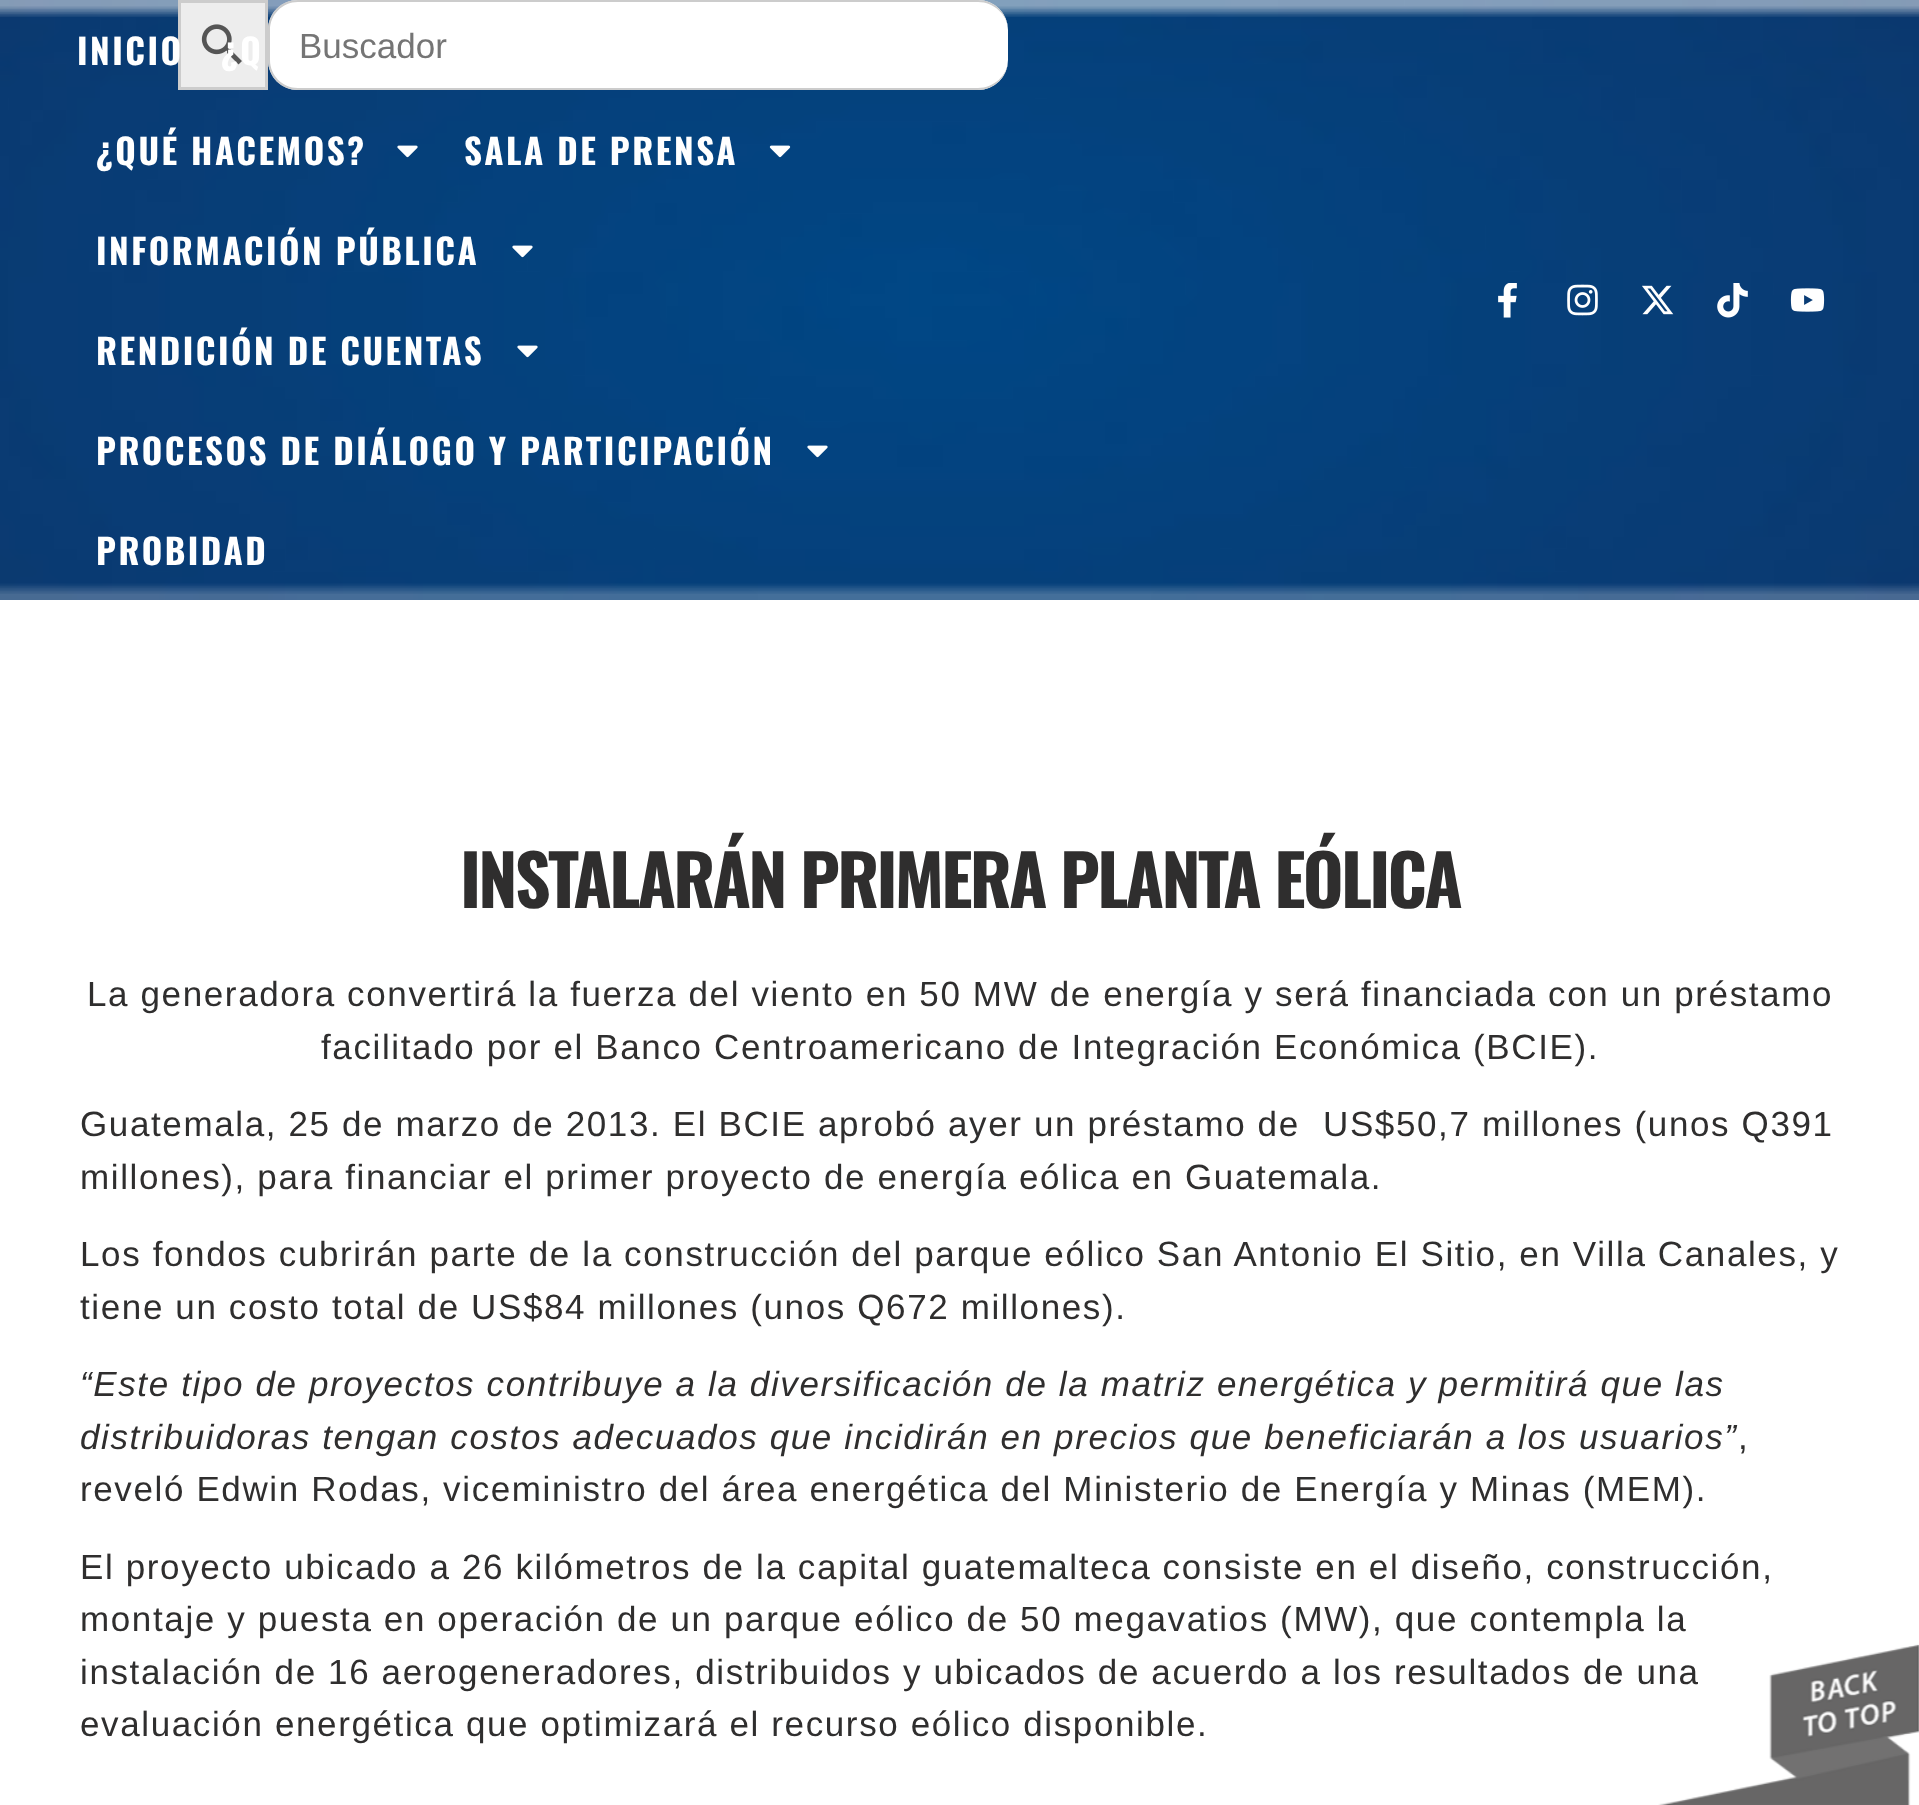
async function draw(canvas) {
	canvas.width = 1919;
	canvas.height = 1805;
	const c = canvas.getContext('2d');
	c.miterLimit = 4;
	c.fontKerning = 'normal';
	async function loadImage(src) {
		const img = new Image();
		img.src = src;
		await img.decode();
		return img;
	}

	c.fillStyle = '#fff';
	c.fillRect(0, 0, 1919, 1805);
	c.drawImage(await loadImage('img1.png'), 0, 0, 1919, 600);
	c.fillStyle = '#ededed';
	c.beginPath();
	c.rect(179.5, 1.5, 87, 87);
	c.fill();
	c.strokeStyle = '#ccc';
	c.lineWidth = 3;
	c.stroke();
	c.drawImage(await loadImage('img2.png'), 201, 24, 41, 41);
	c.fillStyle = '#fff';
	c.beginPath();
	c.roundRect(268, 0, 740, 90, 30);
	c.fill();
	c.fillStyle = '#ccc';
	c.beginPath();
	c.moveTo(298, 0);
	c.lineTo(978, 0);
	c.bezierCurveTo(994, 0, 1008, 13, 1008, 30);
	c.lineTo(1008, 60);
	c.bezierCurveTo(1008, 77, 994, 90, 978, 90);
	c.lineTo(298, 90);
	c.bezierCurveTo(281, 90, 268, 77, 268, 60);
	c.lineTo(268, 30);
	c.bezierCurveTo(268, 13, 281, 0, 298, 0);
	c.closePath();
	c.moveTo(298, 2);
	c.lineTo(978, 2);
	c.bezierCurveTo(994, 2, 1008, 15, 1008, 30);
	c.lineTo(1008, 60);
	c.bezierCurveTo(1008, 75, 994, 88, 978, 88);
	c.lineTo(298, 88);
	c.bezierCurveTo(282, 88, 270, 75, 270, 60);
	c.lineTo(270, 30);
	c.bezierCurveTo(270, 15, 282, 2, 298, 2);
	c.closePath();
	c.fill('evenodd');
	c.font = '35px Liberation Sans';
	c.fillStyle = '#757575';
	c.fillText('Buscador', 299, 58);
	c.letterSpacing = '2.5px';
	c.font = 'bold 35px Oswald';
	c.fillStyle = '#fff';
	for (const [text, x, y] of [
		['INICIO', 77, 65],
		['¿Q', 221, 65],
		['¿QUÉ HACEMOS?', 96, 165],
	]) {
		c.fillText(text, x, y);
	}
	c.drawImage(await loadImage('img3.png'), 397, 145, 21, 13);
	c.fillText('SALA DE PRENSA', 464, 165);
	c.drawImage(await loadImage('img4.png'), 769, 145, 22, 13);
	c.fillText('INFORMACIÓN PÚBLICA', 96, 265);
	c.drawImage(await loadImage('img5.png'), 512, 245, 21, 13);
	c.fillText('RENDICIÓN DE CUENTAS', 96, 365);
	c.drawImage(await loadImage('img6.png'), 517, 345, 21, 13);
	c.fillText('PROCESOS DE DIÁLOGO Y PARTICIPACIÓN', 96, 465);
	c.drawImage(await loadImage('img7.png'), 807, 445, 21, 13);
	c.fillText('PROBIDAD', 96, 565);
	c.drawImage(await loadImage('img8.png'), 1498, 283, 19, 35);
	c.drawImage(await loadImage('img9.png'), 1567, 284, 31, 32);
	c.drawImage(await loadImage('img10.png'), 1642, 285, 32, 30);
	c.drawImage(await loadImage('img11.png'), 1717, 283, 31, 35);
	c.drawImage(await loadImage('img12.png'), 1790, 288, 35, 24);
	c.letterSpacing = '-2.75px';
	c.font = 'bold 70px Oswald';
	c.fillStyle = '#2f2e2e';
	c.fillText('INSTALARÁN PRIMERA PLANTA EÓLICA', 460, 908);
	c.letterSpacing = '1.62px';
	c.font = '35px Liberation Sans';
	for (const [text, x, y] of [
		['La generadora convertirá la fuerza del viento en 50 MW de energía y será financiada con un préstamo', 87, 1006],
		['facilitado por el Banco Centroamericano de Integración Económica (BCIE).', 321, 1059],
		['Guatemala, 25 de marzo de 2013. El BCIE aprobó ayer un préstamo de', 80, 1136],
		['US$50,7 millones (unos Q391', 1323, 1136],
		['millones), para financiar el primer proyecto de energía eólica en Guatemala.', 80, 1189],
		['Los fondos cubrirán parte de la construcción del parque eólico San Antonio El Sitio, en Villa Canales, y', 80, 1266],
		['tiene un costo total de US$84 millones (unos Q672 millones).', 80, 1319],
	]) {
		c.fillText(text, x, y);
	}
	c.font = 'italic 35px Liberation Sans';
	c.fillText('“Este tipo de proyectos contribuye a la diversificación de la matriz energética y permitirá que las', 80, 1396);
	c.fillText('distribuidoras tengan costos adecuados que incidirán en precios que beneficiarán a los usuarios”', 80, 1449);
	c.font = '35px Liberation Sans';
	for (const [text, x, y] of [
		[',', 1738, 1449],
		['reveló Edwin Rodas, viceministro del área energética del Ministerio de Energía y Minas (MEM).', 80, 1501],
		['El proyecto ubicado a 26 kilómetros de la capital guatemalteca consiste en el diseño, construcción,', 80, 1579],
		['montaje y puesta en operación de un parque eólico de 50 megavatios (MW), que contempla la', 80, 1631],
		['instalación de 16 aerogeneradores, distribuidos y ubicados de acuerdo a los resultados de una', 80, 1684],
		['evaluación energética que optimizará el recurso eólico disponible.', 80, 1736],
	]) {
		c.fillText(text, x, y);
	}
	c.drawImage(await loadImage('img13.png'), 1658, 1644, 261, 161);
}

draw(document.querySelector('canvas'));
